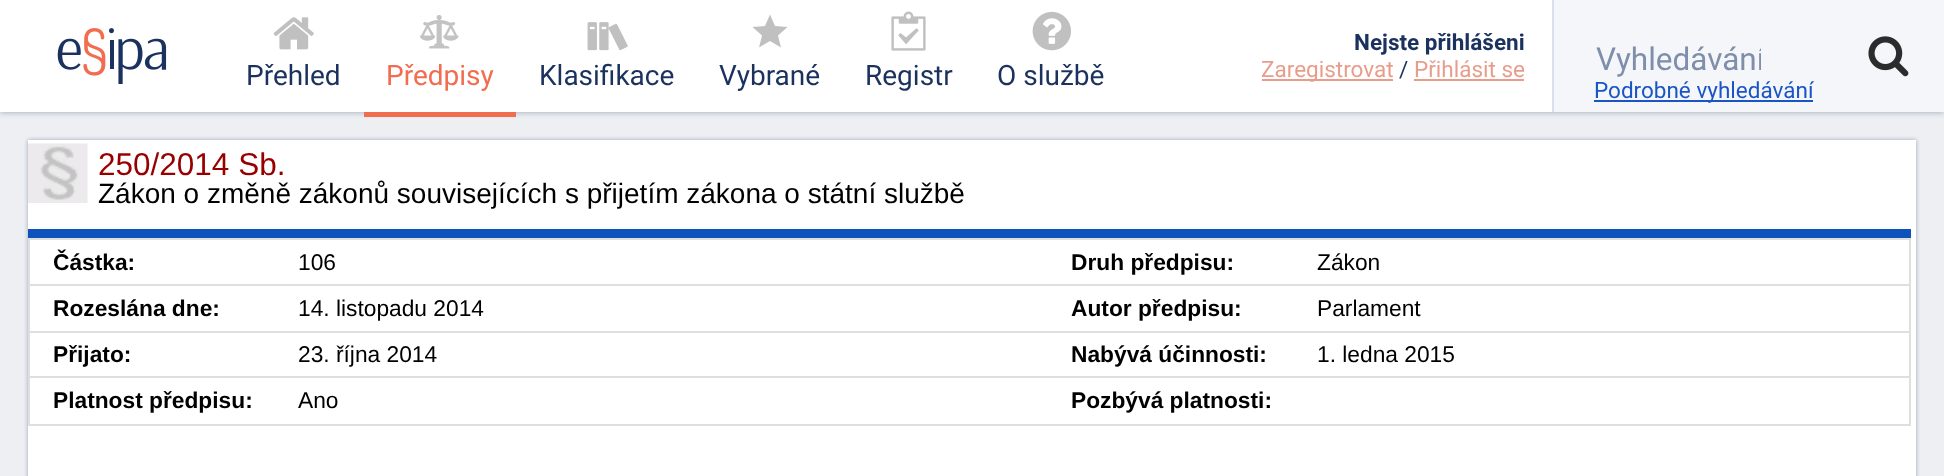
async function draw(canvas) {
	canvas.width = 1944;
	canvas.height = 476;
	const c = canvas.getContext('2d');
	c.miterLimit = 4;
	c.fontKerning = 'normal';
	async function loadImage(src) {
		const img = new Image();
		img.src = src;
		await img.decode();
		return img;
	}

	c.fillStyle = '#edeff2';
	c.fillRect(0, 0, 1944, 476);
	c.fillStyle = '#1b325f66';
	c.filter = 'blur(3px)';
	c.beginPath();
	c.rect(0, 0, 1944, 112);
	c.fill();
	c.filter = 'none';
	c.fillStyle = '#fff';
	c.fillRect(0, 0, 1552, 112);
	c.drawImage(await loadImage('img1.png'), 57, 28, 110, 56);
	c.drawImage(await loadImage('img2.png'), 273, 17, 41, 33);
	c.font = '28px Roboto';
	c.fillStyle = '#1b325f';
	c.fillText('Přehled', 246, 85);
	c.fillStyle = '#f26c4f';
	c.fillRect(364, 112, 152, 5);
	c.drawImage(await loadImage('img3.png'), 420, 15, 39, 34);
	c.fillText('Předpisy', 386, 85);
	c.drawImage(await loadImage('img4.png'), 587, 22, 41, 29);
	c.fillStyle = '#1b325f';
	c.fillText('Klasifikace', 539, 85);
	c.fillStyle = '#c0c0c0';
	c.beginPath();
	c.moveTo(770, 41);
	c.lineTo(759, 47.5);
	c.lineTo(762, 35.5);
	c.lineTo(752.5, 27);
	c.lineTo(765, 26);
	c.lineTo(770, 14.5);
	c.lineTo(775, 26);
	c.lineTo(787.5, 27);
	c.lineTo(778, 35.5);
	c.lineTo(781, 47.5);
	c.closePath();
	c.fill();
	c.fillStyle = '#1b325f';
	c.fillText('Vybrané', 719, 85);
	c.drawImage(await loadImage('img5.png'), 891, 11, 35, 40);
	c.fillText('Registr', 865, 85);
	c.drawImage(await loadImage('img6.png'), 1032, 11, 39, 40);
	c.fillText('O službě', 997, 85);
	c.font = 'bold 22.5px Roboto';
	c.fillText('Nejste přihlášeni', 1354, 50);
	c.fillStyle = '#e89d8c';
	c.fillRect(1262, 79, 131, 2);
	c.font = '22.5px Roboto';
	c.fillText('Zaregistrovat', 1261, 77);
	c.fillStyle = '#1b325f';
	c.fillText('/', 1399, 77);
	c.fillStyle = '#e89d8c';
	c.fillText('Přihlásit se', 1414, 77);
	for (const [x, y, w, h, color] of [
		[1414, 79, 110, 2, '#e89d8c'],
		[1552, 0, 2, 112, '#d9dfed'],
		[1554, 0, 390, 112, '#f4f6fa'],
	]) {
		c.fillStyle = color;
		c.fillRect(x, y, w, h);
	}
	c.save();
	c.beginPath();
	c.rect(1596, 40, 165, 37);
	c.clip();
	c.font = '31.5px Roboto';
	c.fillStyle = '#7e8eab';
	c.fillText('Vyhledávání', 1596, 70);
	c.restore();
	c.drawImage(await loadImage('img7.png'), 1868, 36, 41, 41);
	c.fillStyle = '#1b55c5';
	c.fillRect(1594, 100, 219, 2);
	c.fillText('Podrobné vyhledávání', 1594, 98);
	c.fillStyle = '#1b325f66';
	c.filter = 'blur(2px)';
	c.beginPath();
	c.rect(28, 140, 1888, 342);
	c.fill();
	c.filter = 'none';
	c.fillStyle = '#fff';
	c.fillRect(28, 140, 1888, 336);
	c.drawImage(await loadImage('img8.png'), 28, 143, 60, 60);
	c.fillStyle = '#0e53bb';
	c.fillRect(28, 229, 1883, 9);
	c.font = '31.5px Liberation Sans';
	c.fillStyle = '#980000';
	c.fillText('250/2014 Sb.', 98, 175);
	c.font = '28px Liberation Sans';
	c.fillStyle = '#000';
	c.fillText('Zákon o změně zákonů souvisejících s přijetím zákona o státní službě', 98, 203);
	for (const [x, y, w, h, color] of [
		[28, 238, 1883, 2, '#dfdfdf'],
		[1909, 238, 2, 187, '#dfdfdf'],
		[28, 424, 1883, 2, '#dfdfdf'],
		[28, 238, 2, 187, '#dfdfdf'],
	]) {
		c.fillStyle = color;
		c.fillRect(x, y, w, h);
	}
	c.font = 'bold 22.75px Liberation Sans';
	c.fillStyle = '#000';
	c.fillText('Částka:', 53, 270);
	c.font = '22.75px Liberation Sans';
	c.fillText('106', 298, 270);
	c.font = 'bold 22.75px Liberation Sans';
	c.fillText('Druh předpisu:', 1071, 270);
	c.fillStyle = '#dfdfdf';
	c.fillRect(28, 284, 1883, 2);
	c.font = '22.75px Liberation Sans';
	c.fillStyle = '#000';
	c.fillText('Zákon', 1317, 270);
	c.font = 'bold 22.75px Liberation Sans';
	c.fillText('Rozeslána dne:', 53, 316);
	c.font = '22.75px Liberation Sans';
	c.fillText('14. listopadu 2014', 298, 316);
	c.font = 'bold 22.75px Liberation Sans';
	c.fillText('Autor předpisu:', 1071, 316);
	c.fillStyle = '#dfdfdf';
	c.fillRect(28, 331, 1883, 2);
	c.font = '22.75px Liberation Sans';
	c.fillStyle = '#000';
	c.fillText('Parlament', 1317, 316);
	c.font = 'bold 22.75px Liberation Sans';
	c.fillText('Přijato:', 53, 362);
	c.font = '22.75px Liberation Sans';
	c.fillText('23. října 2014', 298, 362);
	c.font = 'bold 22.75px Liberation Sans';
	c.fillText('Nabývá účinnosti:', 1071, 362);
	c.fillStyle = '#dfdfdf';
	c.fillRect(28, 376, 1883, 2);
	c.font = '22.75px Liberation Sans';
	c.fillStyle = '#000';
	c.fillText('1. ledna 2015', 1317, 362);
	c.font = 'bold 22.75px Liberation Sans';
	c.fillText('Platnost předpisu:', 53, 408);
	c.font = '22.75px Liberation Sans';
	c.fillText('Ano', 298, 408);
	c.font = 'bold 22.75px Liberation Sans';
	c.fillText('Pozbývá platnosti:', 1071, 408);
}

draw(document.querySelector('canvas'));
